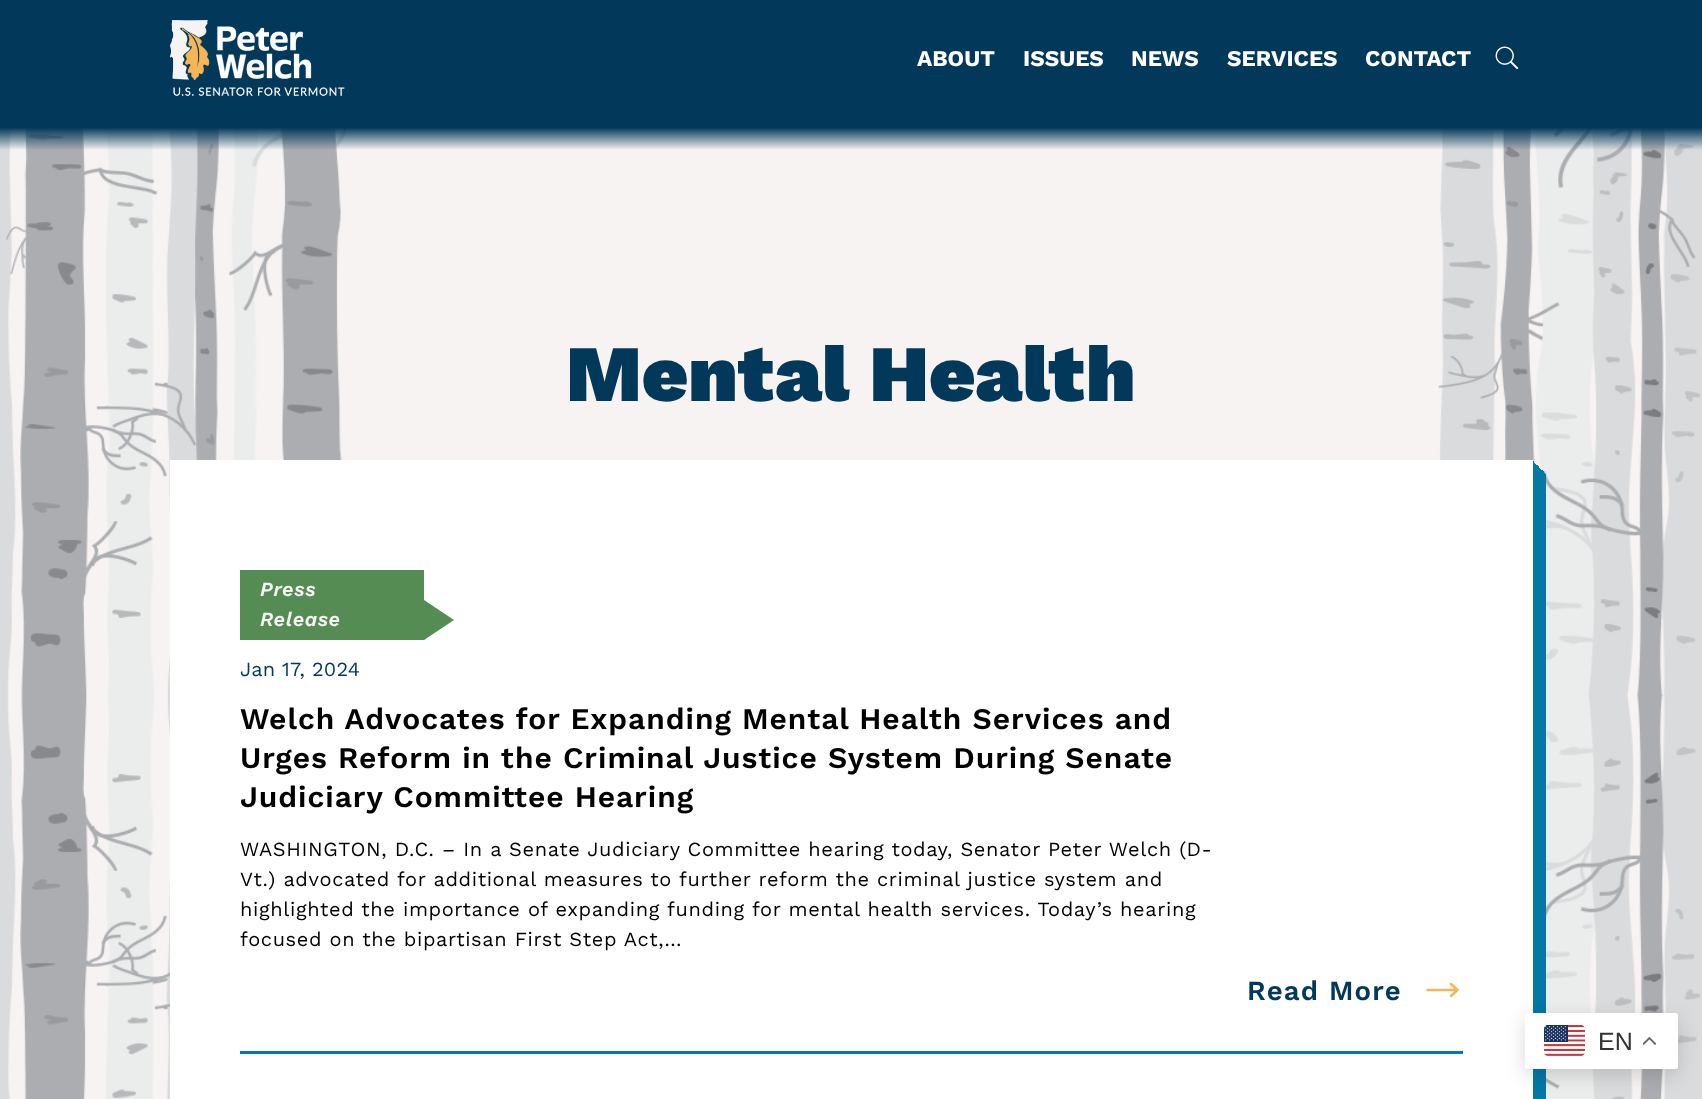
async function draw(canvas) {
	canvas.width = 1702;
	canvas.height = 1099;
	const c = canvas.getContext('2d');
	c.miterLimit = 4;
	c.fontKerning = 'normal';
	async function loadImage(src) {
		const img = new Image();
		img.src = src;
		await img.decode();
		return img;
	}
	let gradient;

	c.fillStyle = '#f7f3f3';
	c.fillRect(0, 0, 1702, 1099);
	c.drawImage(await loadImage('img3.png'), 0, 128, 1702, 971);
	gradient = c.createLinearGradient(851, 0, 851, 150);
	gradient.addColorStop(0.85, '#023859');
	gradient.addColorStop(1, '#02385900');
	c.fillStyle = gradient;
	c.fillRect(0, 0, 1702, 150);
	c.drawImage(await loadImage('img1.png'), 170, 20, 175, 76);
	c.font = 'bold 22.5px Work Sans';
	c.fillStyle = '#fff';
	for (const [text, x, y] of [
		['ABOUT', 917, 66],
		['ISSUES', 1023, 66],
		['NEWS', 1131, 66],
		['SERVICES', 1227, 66],
		['CONTACT', 1365, 66],
	]) {
		c.fillText(text, x, y);
	}
	c.drawImage(await loadImage('img2.png'), 1495, 46, 24, 24);
	c.font = '900 80px Work Sans';
	c.fillStyle = '#023859';
	c.fillText('Mental Health', 566, 401);
	c.fillStyle = '#0578a6';
	c.beginPath();
	c.moveTo(184, 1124);
	c.lineTo(184, 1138);
	c.lineTo(1546, 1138);
	c.lineTo(1546, 474);
	c.lineTo(1532, 474);
	c.lineTo(1532, 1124);
	c.closePath();
	c.fill();
	c.beginPath();
	c.moveTo(183, 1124);
	c.lineTo(183, 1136);
	c.lineTo(1545, 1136);
	c.lineTo(1545, 473);
	c.lineTo(1532, 473);
	c.lineTo(1532, 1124);
	c.closePath();
	c.fill();
	c.beginPath();
	c.moveTo(181, 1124);
	c.lineTo(181, 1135);
	c.lineTo(1544, 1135);
	c.lineTo(1544, 471);
	c.lineTo(1532, 471);
	c.lineTo(1532, 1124);
	c.closePath();
	c.fill();
	c.beginPath();
	c.moveTo(180, 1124);
	c.lineTo(180, 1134);
	c.lineTo(1543, 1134);
	c.lineTo(1543, 470);
	c.lineTo(1532, 470);
	c.lineTo(1532, 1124);
	c.closePath();
	c.fill();
	c.beginPath();
	c.moveTo(179, 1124);
	c.lineTo(179, 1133);
	c.lineTo(1541, 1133);
	c.lineTo(1541, 469);
	c.lineTo(1532, 469);
	c.lineTo(1532, 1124);
	c.closePath();
	c.fill();
	c.beginPath();
	c.moveTo(178, 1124);
	c.lineTo(178, 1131);
	c.lineTo(1540, 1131);
	c.lineTo(1540, 468);
	c.lineTo(1532, 468);
	c.lineTo(1532, 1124);
	c.closePath();
	c.fill();
	c.beginPath();
	c.moveTo(176, 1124);
	c.lineTo(176, 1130);
	c.lineTo(1539, 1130);
	c.lineTo(1539, 466);
	c.lineTo(1532, 466);
	c.lineTo(1532, 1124);
	c.closePath();
	c.fill();
	c.beginPath();
	c.moveTo(175, 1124);
	c.lineTo(175, 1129);
	c.lineTo(1538, 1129);
	c.lineTo(1538, 465);
	c.lineTo(1532, 465);
	c.lineTo(1532, 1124);
	c.closePath();
	c.fill();
	c.beginPath();
	c.moveTo(174, 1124);
	c.lineTo(174, 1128);
	c.lineTo(1536, 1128);
	c.lineTo(1536, 464);
	c.lineTo(1532, 464);
	c.lineTo(1532, 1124);
	c.closePath();
	c.fill();
	c.beginPath();
	c.moveTo(173, 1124);
	c.lineTo(173, 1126);
	c.lineTo(1535, 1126);
	c.lineTo(1535, 463);
	c.lineTo(1532, 463);
	c.lineTo(1532, 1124);
	c.closePath();
	c.fill();
	c.beginPath();
	c.moveTo(171, 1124);
	c.lineTo(171, 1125);
	c.lineTo(1534, 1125);
	c.lineTo(1534, 461);
	c.lineTo(1532, 461);
	c.lineTo(1532, 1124);
	c.closePath();
	c.fill();
	for (const [x, y, w, h, color] of [
		[170, 460, 1363, 639, '#fff'],
		[240, 1051, 1223, 3, '#0578a6'],
		[240, 570, 184, 70, '#548c54'],
	]) {
		c.fillStyle = color;
		c.fillRect(x, y, w, h);
	}
	c.letterSpacing = '0.62px';
	c.font = 'italic 600 20px Work Sans';
	c.fillStyle = '#f7f3f3';
	c.fillText('Press', 260, 596);
	c.fillText('Release', 260, 626);
	c.fillStyle = '#548c54';
	c.beginPath();
	c.moveTo(424, 640);
	c.lineTo(424, 600);
	c.lineTo(454, 620);
	c.closePath();
	c.fill();
	c.letterSpacing = '0.2px';
	c.font = '20px Work Sans';
	c.fillStyle = '#023859';
	c.fillText('Jan 17, 2024', 240, 676);
	c.letterSpacing = '0.95px';
	c.font = '600 30px Work Sans';
	c.fillStyle = '#000';
	for (const [text, x, y] of [
		['Welch Advocates for Expanding Mental Health Services and', 240, 729],
		['Urges Reform in the Criminal Justice System During Senate', 240, 768],
		['Judiciary Committee Hearing', 240, 807],
	]) {
		c.fillText(text, x, y);
	}
	c.letterSpacing = '0.62px';
	c.font = '20px Work Sans';
	for (const [text, x, y] of [
		['WASHINGTON, D.C. – In a Senate Judiciary Committee hearing today, Senator Peter Welch (D-', 240, 856],
		['Vt.) advocated for additional measures to further reform the criminal justice system and', 240, 886],
		['highlighted the importance of expanding funding for mental health services. Today’s hearing', 240, 916],
		['focused on the bipartisan First Step Act,…', 240, 946],
	]) {
		c.fillText(text, x, y);
	}
	c.letterSpacing = '1.25px';
	c.font = '600 27.5px Work Sans';
	c.fillStyle = '#023859';
	c.fillText('Read More', 1247, 1000);
	c.beginPath();
	c.moveTo(1451, 984);
	c.lineTo(1457.5, 990);
	c.moveTo(1457.5, 990);
	c.lineTo(1451, 996);
	c.moveTo(1457.5, 990);
	c.lineTo(1427.5, 990);
	c.strokeStyle = '#f5b756';
	c.lineWidth = 2.5;
	c.lineCap = 'round';
	c.lineJoin = 'round';
	c.stroke();
	c.fillStyle = '#00000026';
	c.filter = 'blur(9.5px)';
	c.beginPath();
	c.roundRect(1525, 1019, 153, 56, 2.5);
	c.fill();
	c.filter = 'none';
	c.fillStyle = '#fff';
	c.beginPath();
	c.roundRect(1525, 1013, 153, 56, 2.5);
	c.fill();
	c.drawImage(await loadImage('img4.png'), 1544, 1025, 41, 31);
	c.letterSpacing = '0px';
	c.font = '25px Liberation Sans';
	c.fillStyle = '#333';
	c.fillText('EN', 1598, 1050);
	c.drawImage(await loadImage('img5.png'), 1643, 1037, 13, 8);
}

draw(document.querySelector('canvas'));
